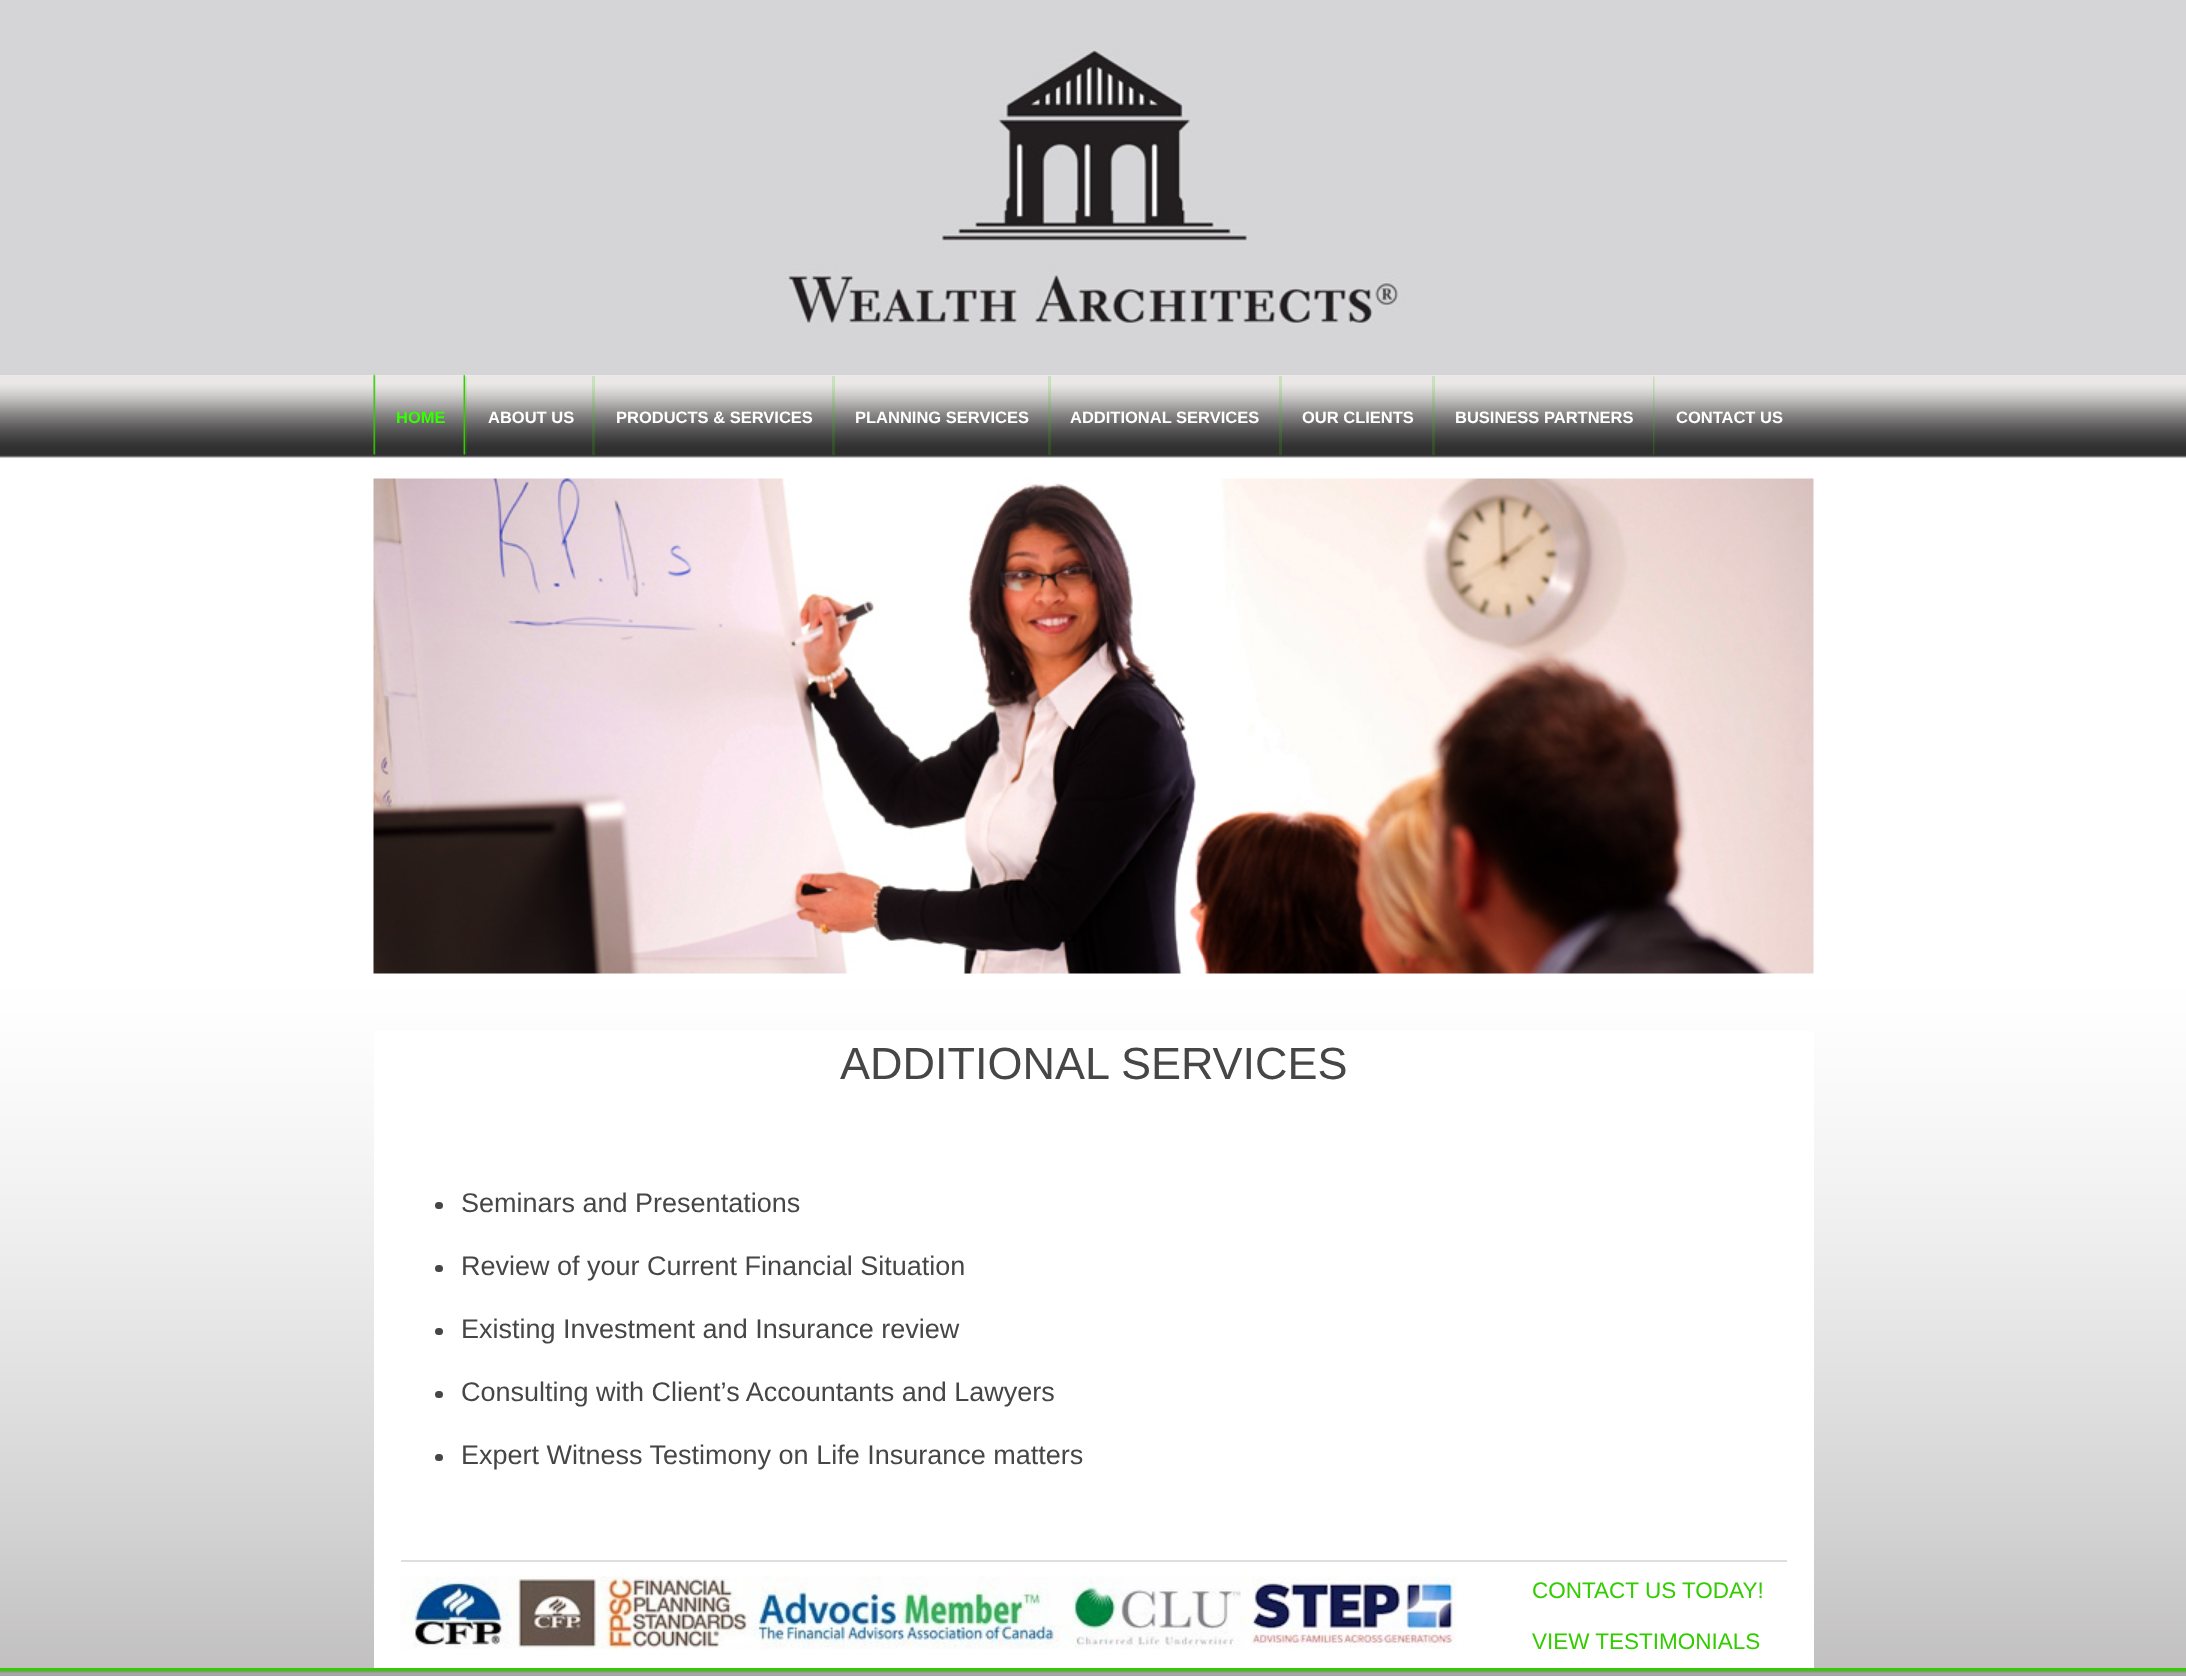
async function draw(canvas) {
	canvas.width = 2186;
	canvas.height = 1676;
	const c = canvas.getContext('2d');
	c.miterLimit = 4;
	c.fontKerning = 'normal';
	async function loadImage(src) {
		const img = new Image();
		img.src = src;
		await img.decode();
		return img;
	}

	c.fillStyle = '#fff';
	c.fillRect(0, 0, 2186, 1676);
	c.drawImage(await loadImage('img1.png'), 0, 375, 2186, 1293);
	c.drawImage(await loadImage('img2.png'), 0, 0, 2186, 375);
	c.drawImage(await loadImage('img3.png'), 373, 373, 3, 82);
	c.drawImage(await loadImage('img4.png'), 463, 374, 2, 81);
	c.font = 'bold 16.5px Liberation Sans';
	c.fillStyle = '#3f0';
	c.fillText('HOME', 396, 423);
	c.drawImage(await loadImage('img5.png'), 465, 376, 2, 79);
	c.fillStyle = '#fff';
	c.fillText('ABOUT US', 488, 423);
	c.fillStyle = '#2fcb0030';
	c.fillRect(592, 376, 3, 79);
	c.fillStyle = '#fff';
	c.fillText('PRODUCTS & SERVICES', 616, 423);
	c.fillStyle = '#2fcb0030';
	c.fillRect(832, 376, 3, 79);
	c.fillStyle = '#fff';
	c.fillText('PLANNING SERVICES', 855, 423);
	c.fillStyle = '#2fcb0030';
	c.fillRect(1048, 376, 3, 79);
	c.fillStyle = '#fff';
	c.fillText('ADDITIONAL SERVICES', 1070, 423);
	c.fillStyle = '#2fcb0030';
	c.fillRect(1279, 376, 3, 79);
	c.fillStyle = '#fff';
	c.fillText('OUR CLIENTS', 1302, 423);
	c.fillStyle = '#2fcb0030';
	c.fillRect(1432, 376, 3, 79);
	c.fillStyle = '#fff';
	c.fillText('BUSINESS PARTNERS', 1455, 423);
	c.drawImage(await loadImage('img6.png'), 1653, 376, 2, 79);
	c.fillText('CONTACT US', 1676, 423);
	c.drawImage(await loadImage('img7.png'), 373, 478, 1441, 496);
	c.fillRect(374, 1031, 1440, 637);
	c.font = '45px Liberation Sans';
	c.fillStyle = '#464646';
	c.fillText('ADDITIONAL SERVICES', 840, 1079);
	c.beginPath();
	c.roundRect(435, 1202, 8, 7, 3.5);
	c.fill();
	c.font = '27px Liberation Sans';
	c.fillText('Seminars and Presentations', 461, 1212);
	c.beginPath();
	c.roundRect(435, 1265, 8, 7, 3.5);
	c.fill();
	c.fillText('Review of your Current Financial Situation', 461, 1275);
	c.beginPath();
	c.roundRect(435, 1328, 8, 7, 3.5);
	c.fill();
	c.fillText('Existing Investment and Insurance review', 461, 1338);
	c.beginPath();
	c.roundRect(435, 1391, 8, 7, 3.5);
	c.fill();
	c.fillText('Consulting with Client’s Accountants and Lawyers', 461, 1401);
	c.beginPath();
	c.roundRect(435, 1454, 8, 7, 3.5);
	c.fill();
	c.fillText('Expert Witness Testimony on Life Insurance matters', 461, 1464);
	c.fillStyle = '#dedede';
	c.fillRect(401, 1560, 1386, 2);
	c.drawImage(await loadImage('img8.png'), 400, 1576, 1057, 74);
	c.font = '22.5px Liberation Sans';
	c.fillStyle = '#3c0';
	c.fillText('CONTACT US TODAY!', 1532, 1598);
	c.fillText('VIEW TESTIMONIALS', 1532, 1649);
	c.drawImage(await loadImage('img9.png'), 0, 1668, 2186, 8);
}

draw(document.querySelector('canvas'));
